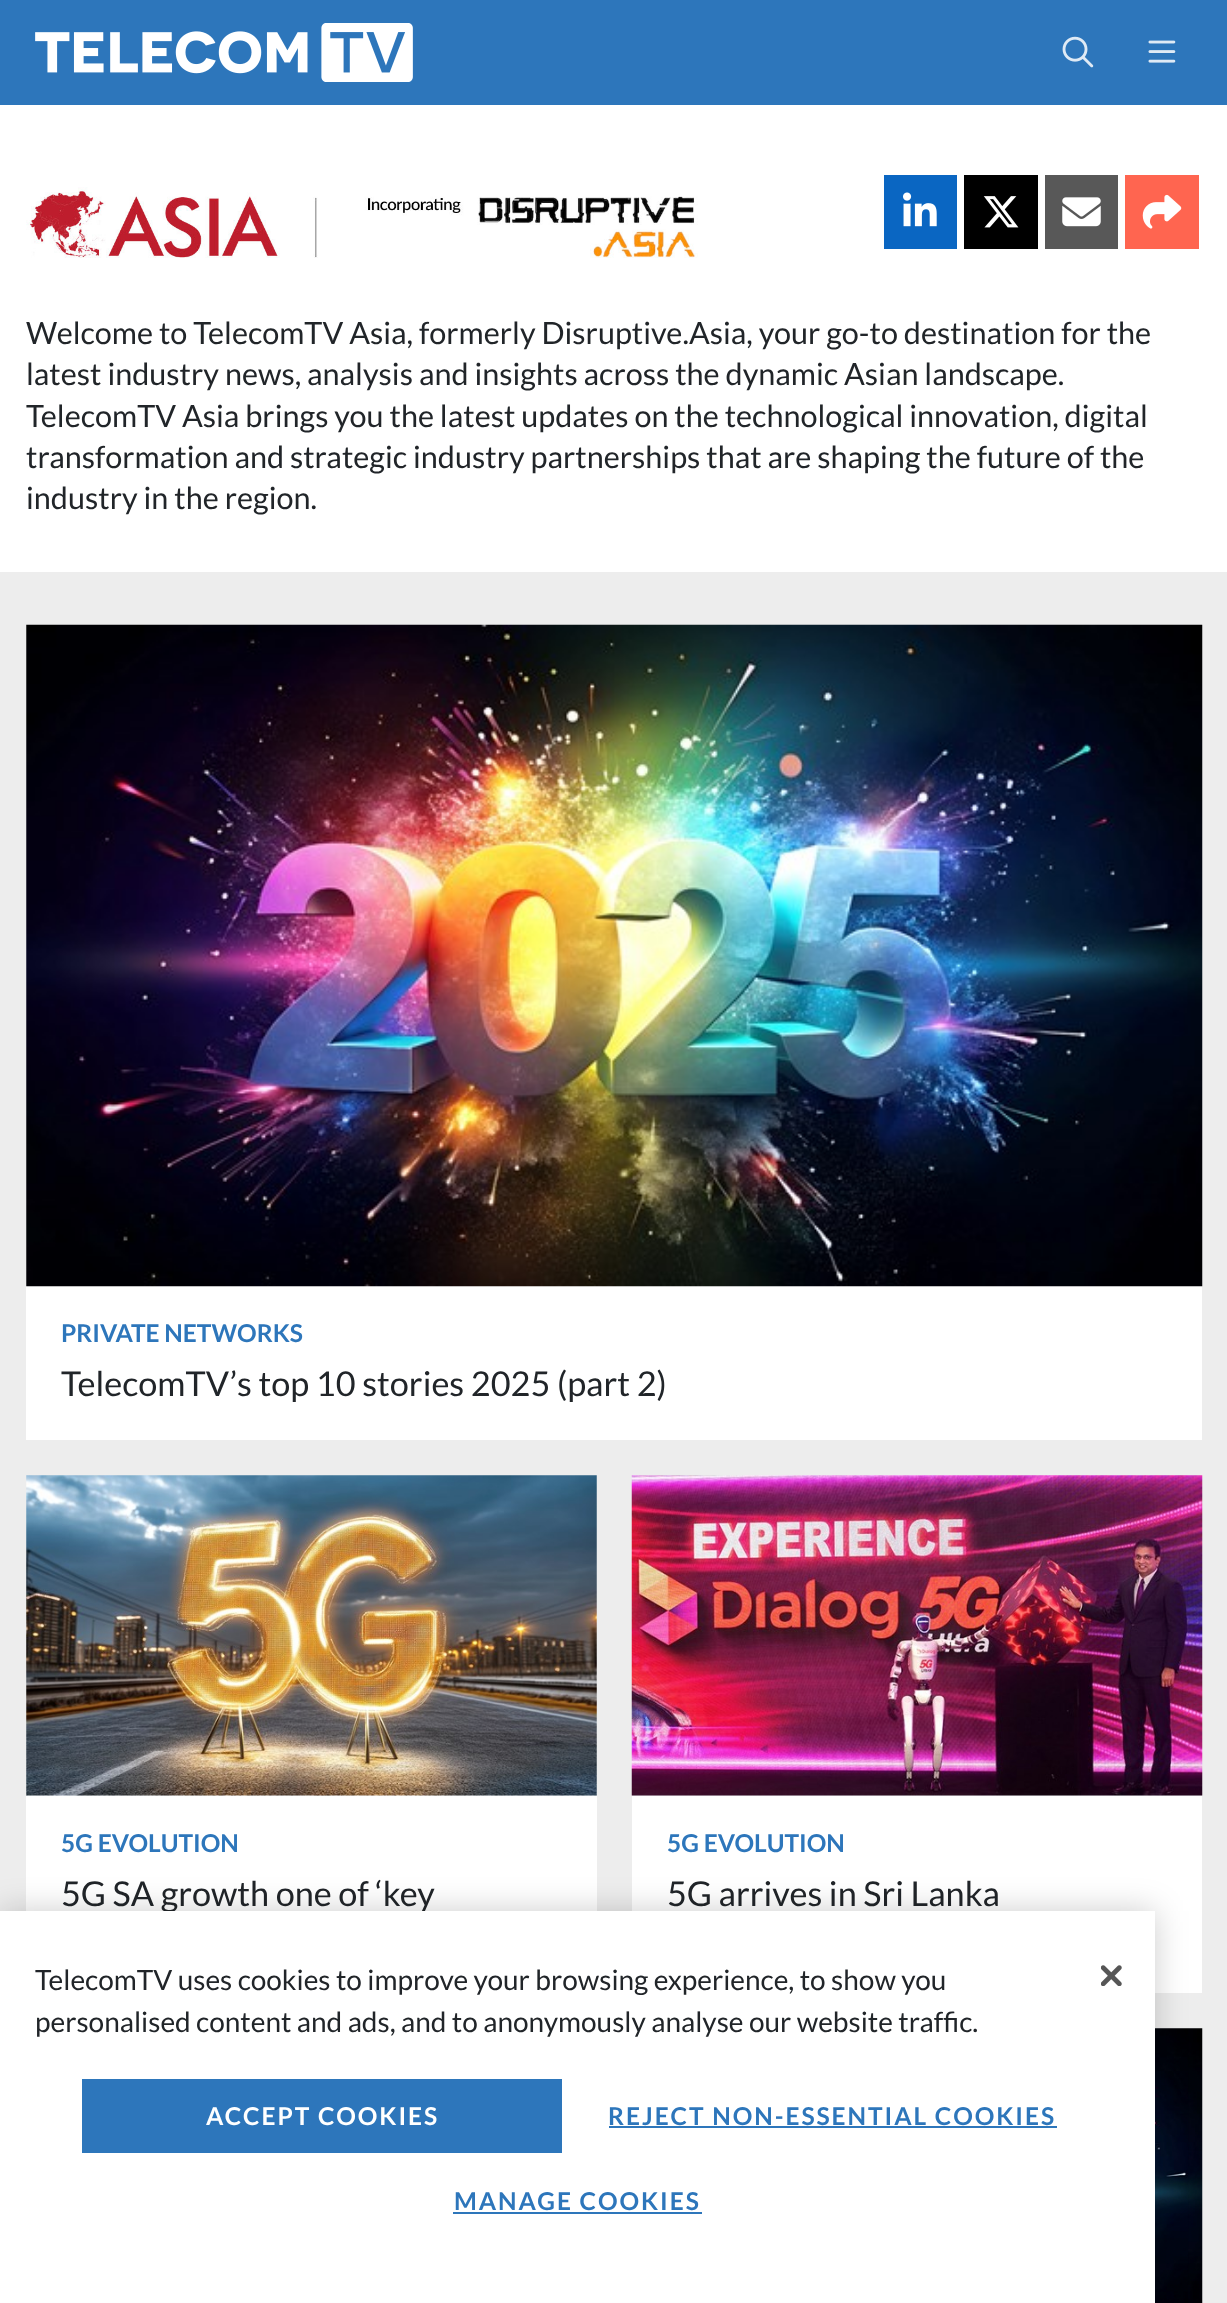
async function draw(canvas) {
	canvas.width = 1227;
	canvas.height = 2303;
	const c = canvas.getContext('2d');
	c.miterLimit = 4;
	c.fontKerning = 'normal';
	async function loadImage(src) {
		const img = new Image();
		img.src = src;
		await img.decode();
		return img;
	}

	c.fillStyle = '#ededed';
	c.fillRect(0, 0, 1227, 2303);
	c.fillStyle = '#2d76bb';
	c.fillRect(0, 0, 1227, 105);
	c.drawImage(await loadImage('img1.png'), 35, 23, 378, 59);
	c.drawImage(await loadImage('img2.png'), 1062, 36, 32, 32);
	c.drawImage(await loadImage('img3.png'), 1148, 40, 28, 23);
	c.fillStyle = '#fff';
	c.fillRect(0, 105, 1227, 467);
	c.drawImage(await loadImage('img4.png'), 26, 187, 672, 71);
	c.fillStyle = '#0a66c2';
	c.fillRect(884, 175, 73, 74);
	c.drawImage(await loadImage('img5.png'), 903, 192, 34, 35);
	c.fillStyle = '#000';
	c.fillRect(964, 175, 74, 74);
	c.drawImage(await loadImage('img6.png'), 983, 196, 36, 32);
	c.fillStyle = '#585858';
	c.fillRect(1045, 175, 73, 74);
	c.drawImage(await loadImage('img7.png'), 1062, 197, 39, 30);
	c.fillStyle = '#ff6550';
	c.fillRect(1125, 175, 74, 74);
	c.drawImage(await loadImage('img8.png'), 1142, 194, 40, 35);
	c.font = '30.6px Lato';
	c.fillStyle = '#212529';
	for (const [text, x, y] of [
		['Welcome to TelecomTV Asia, formerly Disruptive.Asia, your go-to destination for the', 26, 344],
		['latest industry news, analysis and insights across the dynamic Asian landscape.', 26, 385],
		['TelecomTV Asia brings you the latest updates on the technological innovation, digital', 26, 427],
		['transformation and strategic industry partnerships that are shaping the future of the', 26, 468],
		['industry in the region.', 26, 509],
	]) {
		c.fillText(text, x, y);
	}
	c.fillStyle = '#fff';
	c.fillRect(26, 625, 1176, 815);
	c.drawImage(await loadImage('img9.png'), 26, 624, 1177, 663);
	c.font = 'bold 24.5px Lato';
	c.fillStyle = '#2d76bb';
	c.fillText('PRIVATE NETWORKS', 61, 1342);
	c.font = '34.25px Lato';
	c.fillStyle = '#212529';
	c.fillText('TelecomTV’s top 10 stories 2025 (part 2)', 61, 1396);
	c.fillStyle = '#fff';
	c.fillRect(26, 1796, 571, 115);
	c.fillStyle = '#e9ecef';
	c.fillRect(26, 1475, 571, 321);
	c.drawImage(await loadImage('img10.png'), 26, 1475, 571, 321);
	c.font = 'bold 24.5px Lato';
	c.fillStyle = '#2d76bb';
	c.fillText('5G EVOLUTION', 61, 1852);
	c.font = '34.25px Lato';
	c.fillStyle = '#212529';
	c.fillText('5G SA growth one of ‘key', 61, 1906);
	c.fillStyle = '#fff';
	c.fillRect(632, 1796, 570, 197);
	c.fillStyle = '#e9ecef';
	c.fillRect(632, 1475, 570, 321);
	c.drawImage(await loadImage('img11.png'), 631, 1475, 572, 321);
	c.font = 'bold 24.5px Lato';
	c.fillStyle = '#2d76bb';
	c.fillText('5G EVOLUTION', 667, 1852);
	c.font = '34.25px Lato';
	c.fillStyle = '#212529';
	c.fillText('5G arrives in Sri Lanka', 667, 1906);
	c.drawImage(await loadImage('img12.png'), 1155, 2028, 48, 275);
	c.fillStyle = '#00000033';
	c.filter = 'blur(16px)';
	c.beginPath();
	c.rect(0, 1911, 1155, 392);
	c.fill();
	c.filter = 'none';
	c.fillStyle = '#fff';
	c.fillRect(0, 1911, 1155, 392);
	c.font = '28px Lato';
	c.fillStyle = '#212529';
	c.fillText('TelecomTV uses cookies to improve your browsing experience, to show you', 35, 1990);
	c.fillText('personalised content and ads, and to anonymously analyse our website traffic.', 35, 2032);
	c.drawImage(await loadImage('img13.png'), 1101, 1965, 21, 21);
	c.fillStyle = '#2d76bb';
	c.fillRect(82, 2079, 480, 74);
	c.letterSpacing = '1.95px';
	c.font = 'bold 24.5px Lato';
	c.fillStyle = '#fff';
	c.fillText('ACCEPT COOKIES', 206, 2125);
	c.fillStyle = '#2d76bb';
	c.fillText('REJECT NON-ESSENTIAL COOKIES', 608, 2125);
	c.fillRect(609, 2126, 448, 2);
	c.fillText('MANAGE COOKIES', 454, 2210);
	c.fillRect(453, 2212, 249, 2);
}

draw(document.querySelector('canvas'));
